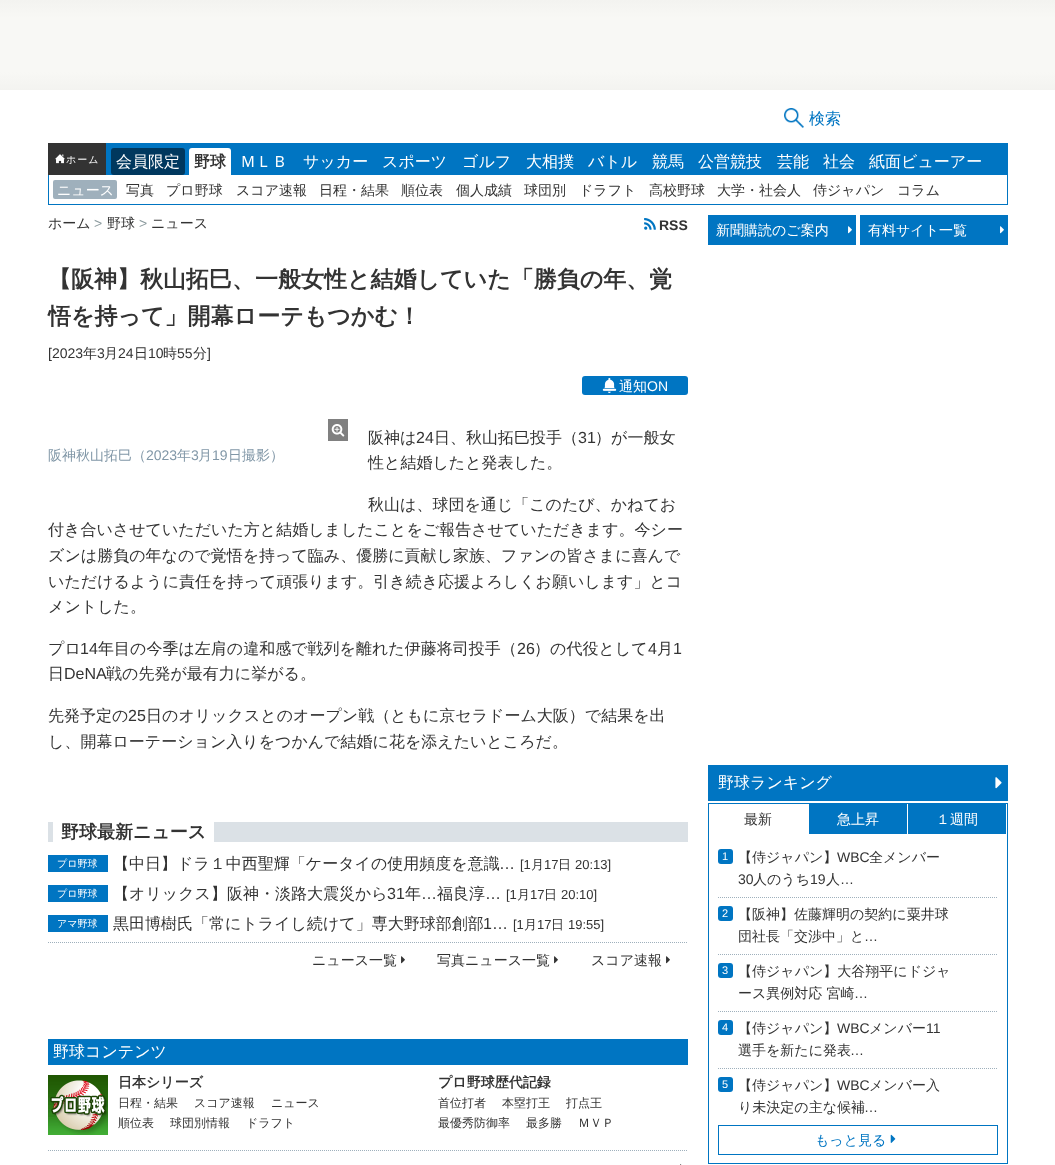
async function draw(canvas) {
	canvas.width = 1055;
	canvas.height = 1165;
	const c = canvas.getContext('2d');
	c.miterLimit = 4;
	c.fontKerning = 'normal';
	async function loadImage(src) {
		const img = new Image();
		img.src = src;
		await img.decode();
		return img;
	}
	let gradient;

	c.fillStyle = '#fff';
	c.fillRect(0, 0, 1055, 1165);
	gradient = c.createLinearGradient(528, 0, 528, 90);
	gradient.addColorStop(0, '#f3f3f0');
	gradient.addColorStop(0.2, '#f8f8f5');
	gradient.addColorStop(0.8, '#f8f8f5');
	gradient.addColorStop(1, '#f3f3f0');
	c.fillStyle = gradient;
	c.fillRect(0, 0, 1055, 90);
	c.drawImage(await loadImage('img1.png'), 784, 108, 20, 20);
	c.font = '500 16px WenQuanYi Zen Hei';
	c.fillStyle = '#0075c2';
	c.fillText('検索', 809, 124);
	c.fillRect(106, 143, 902, 32);
	c.fillStyle = '#333';
	c.fillRect(48, 143, 58, 32);
	c.drawImage(await loadImage('img2.png'), 55, 154, 10, 10);
	c.letterSpacing = '1px';
	c.font = '500 10px WenQuanYi Zen Hei';
	c.fillStyle = '#fff';
	c.fillText('ホーム', 66, 163);
	c.fillStyle = '#00385e';
	c.beginPath();
	c.roundRect(111, 148, 74, 27, 3);
	c.fill();
	c.letterSpacing = '0px';
	c.font = '500 16px WenQuanYi Zen Hei';
	c.fillStyle = '#fff';
	c.fillText('会員限定', 116, 167);
	c.beginPath();
	c.roundRect(189, 148, 42, 27, [3, 3, 0, 0]);
	c.fill();
	c.font = 'bold 16px WenQuanYi Zen Hei';
	c.fillStyle = '#333';
	c.fillText('野球', 194, 167);
	c.font = '500 16px WenQuanYi Zen Hei';
	c.fillStyle = '#fff';
	for (const [text, x, y] of [
		['ＭＬＢ', 240, 167],
		['サッカー', 303, 167],
		['スポーツ', 382, 167],
		['ゴルフ', 462, 167],
		['大相撲', 526, 167],
		['バトル', 588, 167],
		['競馬', 652, 167],
		['公営競技', 698, 167],
		['芸能', 777, 167],
		['社会', 823, 167],
		['紙面ビューアー', 869, 167],
	]) {
		c.fillText(text, x, y);
	}
	for (const [x, y, w, h, color] of [
		[1007, 175, 1, 30, '#0075c2'],
		[48, 204, 960, 1, '#0075c2'],
		[48, 175, 1, 30, '#0075c2'],
	]) {
		c.fillStyle = color;
		c.fillRect(x, y, w, h);
	}
	c.fillStyle = '#9fb0bc';
	c.beginPath();
	c.roundRect(53, 180, 64, 19, 2);
	c.fill();
	c.font = '500 14px WenQuanYi Zen Hei';
	c.fillStyle = '#fff';
	c.fillText('ニュース', 57, 195);
	c.fillStyle = '#333';
	for (const [text, x, y] of [
		['写真', 126, 195],
		['プロ野球', 166, 195],
		['スコア速報', 236, 195],
		['日程・結果', 319, 195],
		['順位表', 401, 195],
		['個人成績', 456, 195],
		['球団別', 524, 195],
		['ドラフト', 579, 195],
		['高校野球', 649, 195],
		['大学・社会人', 717, 195],
		['侍ジャパン', 813, 195],
		['コラム', 897, 195],
		['ホーム', 48, 228],
	]) {
		c.fillText(text, x, y);
	}
	c.font = '14px Liberation Sans';
	c.fillStyle = '#8b9a9e';
	c.fillText('>', 94, 228);
	c.font = '500 14px WenQuanYi Zen Hei';
	c.fillStyle = '#333';
	c.fillText('野球', 107, 228);
	c.font = '14px Liberation Sans';
	c.fillStyle = '#8b9a9e';
	c.fillText('>', 139, 228);
	c.font = '500 14px WenQuanYi Zen Hei';
	c.fillStyle = '#333';
	c.fillText('ニュース', 151, 228);
	c.drawImage(await loadImage('img3.png'), 644, 218, 12, 12);
	c.font = 'bold 14px Liberation Sans';
	c.fillText('RSS', 659, 230);
	c.font = 'bold 23px WenQuanYi Zen Hei';
	c.fillText('【阪神】秋山拓巳、一般女性と結婚していた「勝負の年、覚', 48, 287);
	c.fillText('悟を持って」開幕ローテもつかむ！', 48, 324);
	c.font = '14px Liberation Sans';
	c.fillText('[2023', 48, 358);
	c.font = '500 14px WenQuanYi Zen Hei';
	c.fillText('年', 83, 358);
	c.font = '14px Liberation Sans';
	c.fillText('3', 97, 358);
	c.font = '500 14px WenQuanYi Zen Hei';
	c.fillText('月', 104, 358);
	c.font = '14px Liberation Sans';
	c.fillText('24', 118, 358);
	c.font = '500 14px WenQuanYi Zen Hei';
	c.fillText('日', 134, 358);
	c.font = '14px Liberation Sans';
	c.fillText('10', 148, 358);
	c.font = '500 14px WenQuanYi Zen Hei';
	c.fillText('時', 163, 358);
	c.font = '14px Liberation Sans';
	c.fillText('55', 177, 358);
	c.font = '500 14px WenQuanYi Zen Hei';
	c.fillText('分', 193, 358);
	c.font = '14px Liberation Sans';
	c.fillText(']', 207, 358);
	c.fillStyle = '#0075c2';
	c.beginPath();
	c.roundRect(582, 376, 106, 19, 3);
	c.fill();
	c.drawImage(await loadImage('img4.png'), 602, 378, 15, 15);
	c.font = '500 14px WenQuanYi Zen Hei';
	c.fillStyle = '#fff';
	c.fillText('通知', 619, 391);
	c.font = '14px Liberation Sans';
	c.fillText('ON', 647, 391);
	c.font = '500 16px WenQuanYi Zen Hei';
	c.fillStyle = '#333';
	c.fillText('阪神は', 368, 443);
	c.font = '16px Liberation Sans';
	c.fillText('24', 416, 443);
	c.font = '500 16px WenQuanYi Zen Hei';
	c.fillText('日、秋山拓巳投手（', 434, 443);
	c.font = '16px Liberation Sans';
	c.fillText('31', 578, 443);
	c.font = '500 16px WenQuanYi Zen Hei';
	for (const [text, x, y] of [
		['）が一般女', 595, 443],
		['性と結婚したと発表した。', 368, 468],
		['秋山は、球団を通じ「このたび、かねてお', 368, 510],
		['付き合いさせていただいた方と結婚しましたことをご報告させていただきます。今シー', 48, 535],
		['ズンは勝負の年なので覚悟を持って臨み、優勝に貢献し家族、ファンの皆さまに喜んで', 48, 561],
		['いただけるように責任を持って頑張ります。引き続き応援よろしくお願いします」とコ', 48, 587],
		['メントした。', 48, 612],
		['プロ', 48, 654],
	]) {
		c.fillText(text, x, y);
	}
	c.font = '16px Liberation Sans';
	c.fillText('14', 80, 654);
	c.font = '500 16px WenQuanYi Zen Hei';
	c.fillText('年目の今季は左肩の違和感で戦列を離れた伊藤将司投手（', 98, 654);
	c.font = '16px Liberation Sans';
	c.fillText('26', 517, 654);
	c.font = '500 16px WenQuanYi Zen Hei';
	c.fillText('）の代役として', 534, 654);
	c.font = '16px Liberation Sans';
	c.fillText('4', 648, 654);
	c.font = '500 16px WenQuanYi Zen Hei';
	c.fillText('月', 657, 654);
	c.font = '16px Liberation Sans';
	c.fillText('1', 673, 654);
	c.font = '500 16px WenQuanYi Zen Hei';
	c.fillText('日', 48, 679);
	c.font = '16px Liberation Sans';
	c.fillText('DeNA', 64, 679);
	c.font = '500 16px WenQuanYi Zen Hei';
	c.fillText('戦の先発が最有力に挙がる。', 106, 679);
	c.fillText('先発予定の', 48, 721);
	c.font = '16px Liberation Sans';
	c.fillText('25', 128, 721);
	c.font = '500 16px WenQuanYi Zen Hei';
	c.fillText('日のオリックスとのオープン戦（ともに京セラドーム大阪）で結果を出', 146, 721);
	c.fillText('し、開幕ローテーション入りをつかんで結婚に花を添えたいところだ。', 48, 747);
	c.fillStyle = '#808080';
	c.fillRect(328, 419, 20, 22);
	c.drawImage(await loadImage('img5.png'), 331, 424, 14, 13);
	c.font = '500 14px WenQuanYi Zen Hei';
	c.fillStyle = '#8197a7';
	c.fillText('阪神秋山拓巳（', 48, 460);
	c.font = '14px Liberation Sans';
	c.fillText('2023', 146, 460);
	c.font = '500 14px WenQuanYi Zen Hei';
	c.fillText('年', 177, 460);
	c.font = '14px Liberation Sans';
	c.fillText('3', 191, 460);
	c.font = '500 14px WenQuanYi Zen Hei';
	c.fillText('月', 198, 460);
	c.font = '14px Liberation Sans';
	c.fillText('19', 212, 460);
	c.font = '500 14px WenQuanYi Zen Hei';
	c.fillText('日撮影）', 228, 460);
	c.fillStyle = '#dbe1e6';
	c.fillRect(48, 822, 640, 20);
	c.fillStyle = '#fff';
	c.fillRect(53, 822, 161, 20);
	c.font = 'bold 18px WenQuanYi Zen Hei';
	c.fillStyle = '#333';
	c.fillText('野球最新ニュース', 61, 838);
	c.fillStyle = '#0075c2';
	c.fillRect(48, 855, 60, 17);
	c.font = '500 10px WenQuanYi Zen Hei';
	c.fillStyle = '#fff';
	c.fillText('プロ野球', 57, 867);
	c.font = '500 16px WenQuanYi Zen Hei';
	c.fillStyle = '#333';
	c.fillText('【中日】ドラ１中西聖輝「ケータイの使用頻度を意識', 113, 869);
	c.font = '16px Liberation Sans';
	c.fillText('…', 499, 869);
	c.font = '13px Liberation Sans';
	c.fillText('[1', 520, 869);
	c.font = '500 13px WenQuanYi Zen Hei';
	c.fillText('月', 531, 869);
	c.font = '13px Liberation Sans';
	c.fillText('17', 544, 869);
	c.font = '500 13px WenQuanYi Zen Hei';
	c.fillText('日', 558, 869);
	c.font = '13px Liberation Sans';
	c.fillText('20:13]', 575, 869);
	c.fillStyle = '#0075c2';
	c.fillRect(48, 885, 60, 17);
	c.font = '500 10px WenQuanYi Zen Hei';
	c.fillStyle = '#fff';
	c.fillText('プロ野球', 57, 897);
	c.font = '500 16px WenQuanYi Zen Hei';
	c.fillStyle = '#333';
	c.fillText('【オリックス】阪神・淡路大震災から', 113, 899);
	c.font = '16px Liberation Sans';
	c.fillText('31', 387, 899);
	c.font = '500 16px WenQuanYi Zen Hei';
	c.fillText('年', 405, 899);
	c.font = '16px Liberation Sans';
	c.fillText('…', 421, 899);
	c.font = '500 16px WenQuanYi Zen Hei';
	c.fillText('福良淳', 437, 899);
	c.font = '16px Liberation Sans';
	c.fillText('…', 485, 899);
	c.font = '13px Liberation Sans';
	c.fillText('[1', 506, 899);
	c.font = '500 13px WenQuanYi Zen Hei';
	c.fillText('月', 517, 899);
	c.font = '13px Liberation Sans';
	c.fillText('17', 530, 899);
	c.font = '500 13px WenQuanYi Zen Hei';
	c.fillText('日', 544, 899);
	c.font = '13px Liberation Sans';
	c.fillText('20:10]', 561, 899);
	c.fillStyle = '#0075c2';
	c.fillRect(48, 915, 60, 17);
	c.font = '500 10px WenQuanYi Zen Hei';
	c.fillStyle = '#fff';
	c.fillText('アマ野球', 57, 927);
	c.font = '500 16px WenQuanYi Zen Hei';
	c.fillStyle = '#333';
	c.fillText('黒田博樹氏「常にトライし続けて」専大野球部創部', 113, 929);
	c.font = '16px Liberation Sans';
	c.fillText('1…', 483, 929);
	c.font = '13px Liberation Sans';
	c.fillText('[1', 513, 929);
	c.font = '500 13px WenQuanYi Zen Hei';
	c.fillText('月', 524, 929);
	c.font = '13px Liberation Sans';
	c.fillText('17', 537, 929);
	c.font = '500 13px WenQuanYi Zen Hei';
	c.fillText('日', 551, 929);
	c.font = '13px Liberation Sans';
	c.fillText('19:55]', 568, 929);
	c.beginPath();
	c.moveTo(48, 942.5);
	c.lineTo(688, 942.5);
	c.strokeStyle = '#9fb0bc';
	c.setLineDash([1, 1]);
	c.stroke();
	c.font = '500 14px WenQuanYi Zen Hei';
	c.fillText('ニュース一覧', 312, 965);
	c.drawImage(await loadImage('img6.png'), 401, 956, 4, 8);
	c.fillText('写真ニュース一覧', 437, 965);
	c.drawImage(await loadImage('img6.png'), 554, 956, 4, 8);
	c.fillText('スコア速報', 591, 965);
	c.drawImage(await loadImage('img6.png'), 666, 956, 4, 8);
	c.fillStyle = '#0075c2';
	c.fillRect(48, 1039, 640, 26);
	c.font = '500 16px WenQuanYi Zen Hei';
	c.fillStyle = '#fff';
	c.fillText('野球コンテンツ', 53, 1057);
	c.drawImage(await loadImage('img7.png'), 48, 1075, 60, 60);
	c.font = 'bold 14px WenQuanYi Zen Hei';
	c.fillStyle = '#333';
	c.fillText('日本シリーズ', 118, 1087);
	c.font = '500 12px WenQuanYi Zen Hei';
	for (const [text, x, y] of [
		['日程・結果', 118, 1107],
		['スコア速報', 194, 1107],
		['ニュース', 271, 1107],
		['順位表', 118, 1127],
		['球団別情報', 170, 1127],
		['ドラフト', 246, 1127],
	]) {
		c.fillText(text, x, y);
	}
	c.font = 'bold 14px WenQuanYi Zen Hei';
	c.fillText('プロ野球歴代記録', 438, 1087);
	c.font = '500 12px WenQuanYi Zen Hei';
	for (const [text, x, y] of [
		['首位打者', 438, 1107],
		['本塁打王', 502, 1107],
		['打点王', 566, 1107],
		['最優秀防御率', 438, 1127],
		['最多勝', 526, 1127],
		['ＭＶＰ', 578, 1127],
	]) {
		c.fillText(text, x, y);
	}
	c.beginPath();
	c.moveTo(48, 1150.5);
	c.lineTo(688, 1150.5);
	c.stroke();
	c.drawImage(await loadImage('img8.png'), 680, 1164, 2, 1);
	c.fillStyle = '#0075c2';
	c.fillRect(708, 215, 148, 30);
	c.font = '500 14px WenQuanYi Zen Hei';
	c.fillStyle = '#fff';
	c.fillText('新聞購読のご案内', 716, 235);
	c.drawImage(await loadImage('img9.png'), 848, 226, 4, 8);
	c.fillStyle = '#0075c2';
	c.fillRect(860, 215, 148, 30);
	c.fillStyle = '#fff';
	c.fillText('有料サイト一覧', 868, 235);
	c.drawImage(await loadImage('img9.png'), 1000, 226, 4, 8);
	c.fillStyle = '#0075c2';
	c.fillRect(708, 765, 300, 36);
	c.font = '500 16px WenQuanYi Zen Hei';
	c.fillStyle = '#fff';
	c.fillText('野球ランキング', 718, 788);
	c.drawImage(await loadImage('img10.png'), 995, 777, 7, 12);
	c.strokeStyle = '#0075c2';
	c.setLineDash([]);
	c.strokeRect(708.5, 803.5, 299, 360);
	c.font = '500 14px WenQuanYi Zen Hei';
	c.fillStyle = '#333';
	c.fillText('最新', 744, 824);
	c.fillStyle = '#0075c2';
	c.fillRect(809, 804, 98, 30);
	c.fillStyle = '#fff';
	c.fillText('急上昇', 837, 824);
	c.fillStyle = '#0075c2';
	c.fillRect(908, 804, 98, 30);
	c.fillStyle = '#fff';
	c.fillText('１週間', 936, 824);
	c.beginPath();
	c.moveTo(718, 897.5);
	c.lineTo(998, 897.5);
	c.strokeStyle = '#9fb0bc';
	c.setLineDash([1, 1]);
	c.stroke();
	c.fillStyle = '#0075c2';
	c.beginPath();
	c.roundRect(718, 849, 15, 15, 3);
	c.fill();
	c.font = '11px Liberation Sans';
	c.fillStyle = '#fff';
	c.fillText('1', 722, 860);
	c.font = '500 14px WenQuanYi Zen Hei';
	c.fillStyle = '#333';
	c.fillText('【侍ジャパン】', 738, 862);
	c.font = '14px Liberation Sans';
	c.fillText('WBC', 837, 862);
	c.font = '500 14px WenQuanYi Zen Hei';
	c.fillText('全メンバー', 869, 862);
	c.font = '14px Liberation Sans';
	c.fillText('30', 738, 884);
	c.font = '500 14px WenQuanYi Zen Hei';
	c.fillText('人のうち', 753, 884);
	c.font = '14px Liberation Sans';
	c.fillText('19', 810, 884);
	c.font = '500 14px WenQuanYi Zen Hei';
	c.fillText('人', 826, 884);
	c.font = '14px Liberation Sans';
	c.fillText('…', 840, 884);
	c.beginPath();
	c.moveTo(718, 954.5);
	c.lineTo(998, 954.5);
	c.stroke();
	c.fillStyle = '#0075c2';
	c.beginPath();
	c.roundRect(718, 906, 15, 15, 3);
	c.fill();
	c.font = '11px Liberation Sans';
	c.fillStyle = '#fff';
	c.fillText('2', 722, 917);
	c.font = '500 14px WenQuanYi Zen Hei';
	c.fillStyle = '#333';
	c.fillText('【阪神】佐藤輝明の契約に粟井球', 738, 919);
	c.fillText('団社長「交渉中」と', 738, 941);
	c.font = '14px Liberation Sans';
	c.fillText('…', 864, 941);
	c.beginPath();
	c.moveTo(718, 1011.5);
	c.lineTo(998, 1011.5);
	c.stroke();
	c.fillStyle = '#0075c2';
	c.beginPath();
	c.roundRect(718, 963, 15, 15, 3);
	c.fill();
	c.font = '11px Liberation Sans';
	c.fillStyle = '#fff';
	c.fillText('3', 722, 974);
	c.font = '500 14px WenQuanYi Zen Hei';
	c.fillStyle = '#333';
	c.fillText('【侍ジャパン】大谷翔平にドジャ', 738, 976);
	c.fillText('ース異例対応 宮崎', 738, 998);
	c.font = '14px Liberation Sans';
	c.fillText('…', 854, 998);
	c.beginPath();
	c.moveTo(718, 1068.5);
	c.lineTo(998, 1068.5);
	c.stroke();
	c.fillStyle = '#0075c2';
	c.beginPath();
	c.roundRect(718, 1020, 15, 15, 3);
	c.fill();
	c.font = '11px Liberation Sans';
	c.fillStyle = '#fff';
	c.fillText('4', 722, 1031);
	c.font = '500 14px WenQuanYi Zen Hei';
	c.fillStyle = '#333';
	c.fillText('【侍ジャパン】', 738, 1033);
	c.font = '14px Liberation Sans';
	c.fillText('WBC', 837, 1033);
	c.font = '500 14px WenQuanYi Zen Hei';
	c.fillText('メンバー', 869, 1033);
	c.font = '14px Liberation Sans';
	c.fillText('11', 926, 1033);
	c.font = '500 14px WenQuanYi Zen Hei';
	c.fillText('選手を新たに発表', 738, 1055);
	c.font = '14px Liberation Sans';
	c.fillText('…', 850, 1055);
	c.fillStyle = '#0075c2';
	c.beginPath();
	c.roundRect(718, 1077, 15, 15, 3);
	c.fill();
	c.font = '11px Liberation Sans';
	c.fillStyle = '#fff';
	c.fillText('5', 722, 1088);
	c.font = '500 14px WenQuanYi Zen Hei';
	c.fillStyle = '#333';
	c.fillText('【侍ジャパン】', 738, 1090);
	c.font = '14px Liberation Sans';
	c.fillText('WBC', 837, 1090);
	c.font = '500 14px WenQuanYi Zen Hei';
	c.fillText('メンバー入', 869, 1090);
	c.fillText('り未決定の主な候補', 738, 1112);
	c.font = '14px Liberation Sans';
	c.fillText('…', 864, 1112);
	c.strokeStyle = '#0075c2';
	c.setLineDash([]);
	c.strokeRect(718.5, 1125.5, 279, 29);
	c.font = '500 14px WenQuanYi Zen Hei';
	c.fillStyle = '#0075c2';
	c.fillText('もっと見る', 815, 1145);
	c.drawImage(await loadImage('img11.png'), 890, 1134, 6, 9);
}

draw(document.querySelector('canvas'));
